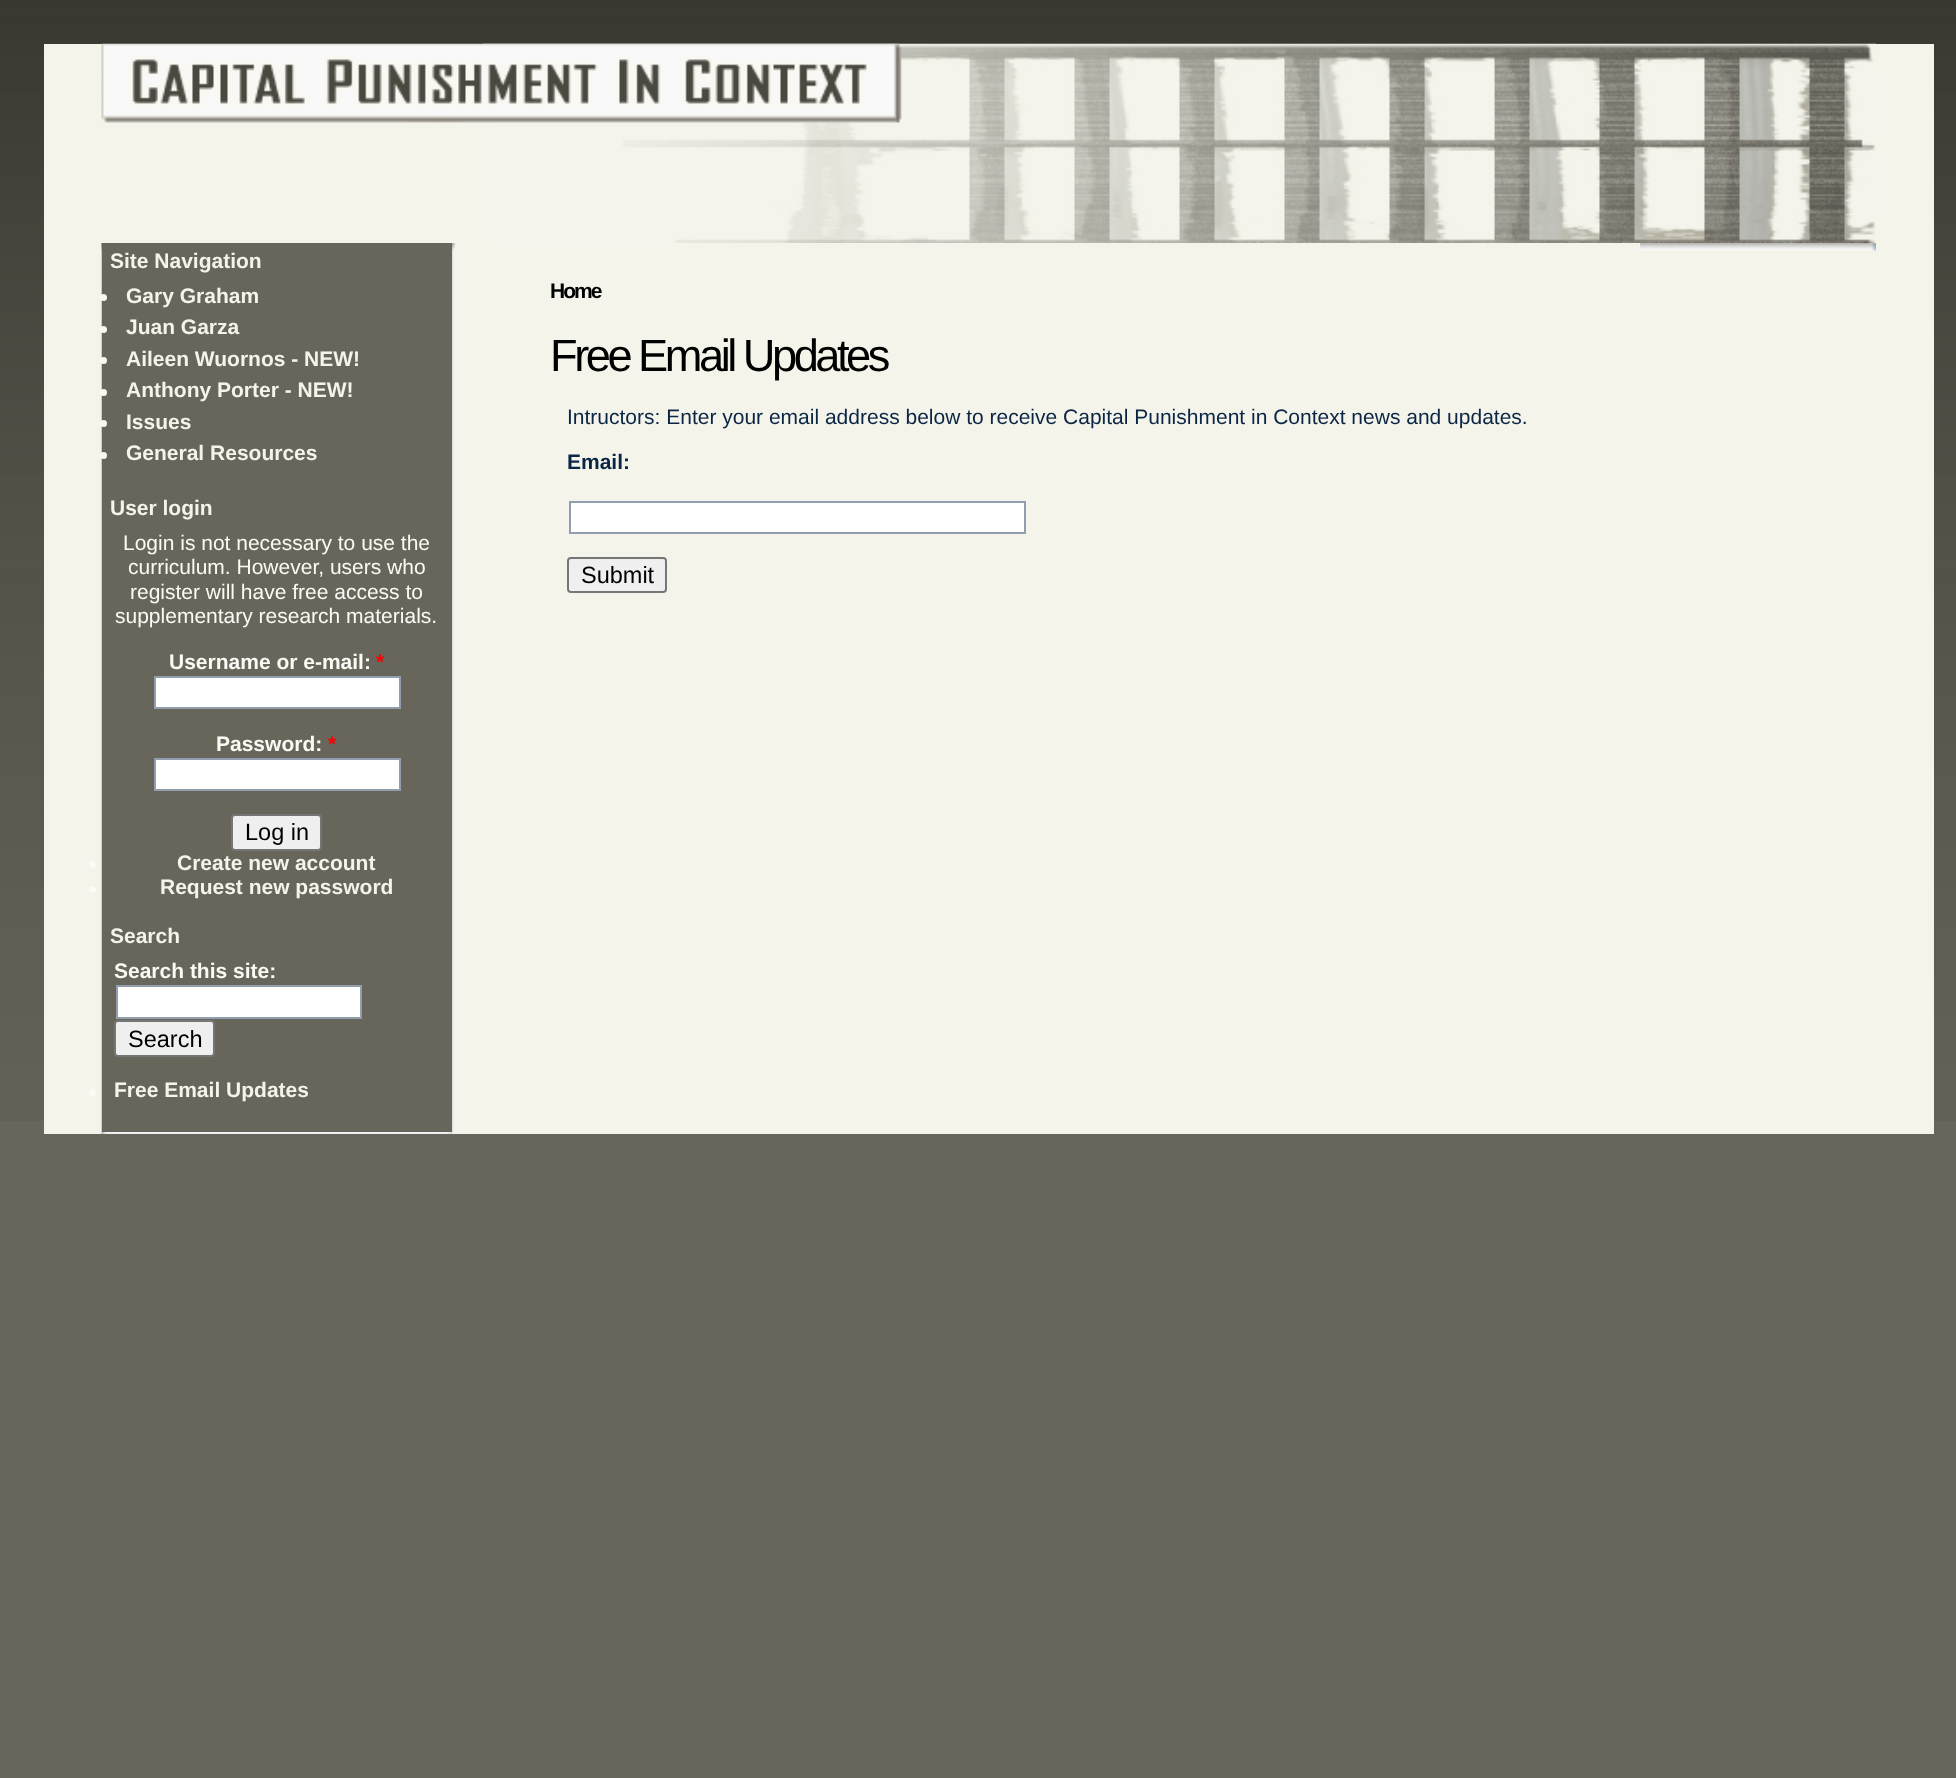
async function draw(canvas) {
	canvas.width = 1956;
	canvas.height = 1778;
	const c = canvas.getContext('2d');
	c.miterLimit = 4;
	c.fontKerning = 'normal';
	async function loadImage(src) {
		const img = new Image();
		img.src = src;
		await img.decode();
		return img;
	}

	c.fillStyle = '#68655a';
	c.fillRect(0, 0, 1956, 1778);
	c.drawImage(await loadImage('img1.png'), 0, 0, 1956, 1121);
	c.fillStyle = '#f4f4eb';
	c.fillRect(44, 44, 1890, 1090);
	c.drawImage(await loadImage('img4.png'), 101, 243, 1775, 7);
	c.drawImage(await loadImage('img7.png'), 1872, 243, 4, 8);
	c.drawImage(await loadImage('img2.png'), 483, 43, 1393, 201);
	c.drawImage(await loadImage('img3.png'), 101, 43, 801, 80);
	c.drawImage(await loadImage('img5.png'), 101, 243, 1, 891);
	c.drawImage(await loadImage('img6.png'), 101, 243, 1, 8);
	c.drawImage(await loadImage('img8.png'), 101, 243, 353, 891);
	c.drawImage(await loadImage('img9.png'), 101, 243, 353, 8);
	c.fillStyle = '#68655a';
	c.fillRect(102, 243, 350, 889);
	c.font = 'bold 21px Liberation Sans';
	c.fillStyle = '#f4f4eb';
	c.fillText('Site Navigation', 110, 268);
	c.fillStyle = '#fbfaf4';
	c.beginPath();
	c.arc(103.5, 297.5, 3.5, 0, 2 * Math.PI);
	c.fill();
	c.fillStyle = '#f4f4eb';
	c.fillText('Gary Graham', 126, 303);
	c.fillStyle = '#fbfaf4';
	c.beginPath();
	c.arc(103.5, 329.5, 3.5, 0, 2 * Math.PI);
	c.fill();
	c.fillStyle = '#f4f4eb';
	c.fillText('Juan Garza', 126, 334);
	c.fillStyle = '#fbfaf4';
	c.beginPath();
	c.arc(103.5, 360.5, 3.5, 0, 2 * Math.PI);
	c.fill();
	c.fillStyle = '#f4f4eb';
	c.fillText('Aileen Wuornos - NEW!', 126, 366);
	c.fillStyle = '#fbfaf4';
	c.beginPath();
	c.arc(103.5, 392.5, 3.5, 0, 2 * Math.PI);
	c.fill();
	c.fillStyle = '#f4f4eb';
	c.fillText('Anthony Porter - NEW!', 126, 397);
	c.fillStyle = '#fbfaf4';
	c.beginPath();
	c.arc(103.5, 423.5, 3.5, 0, 2 * Math.PI);
	c.fill();
	c.fillStyle = '#f4f4eb';
	c.fillText('Issues', 126, 429);
	c.fillStyle = '#fbfaf4';
	c.beginPath();
	c.arc(103.5, 455.5, 3.5, 0, 2 * Math.PI);
	c.fill();
	c.fillStyle = '#f4f4eb';
	c.fillText('General Resources', 126, 460);
	c.fillText('User login', 110, 515);
	c.font = '21px Liberation Sans';
	c.fillStyle = '#fbfaf4';
	for (const [text, x, y] of [
		['Login is not necessary to use the', 123, 550],
		['curriculum. However, users who', 128, 574],
		['register will have free access to', 130, 599],
		['supplementary research materials.', 115, 623],
	]) {
		c.fillText(text, x, y);
	}
	c.font = 'bold 21px Liberation Sans';
	c.fillText('Username or e-mail:', 169, 669);
	c.fillStyle = '#f00';
	c.fillText('*', 376, 669);
	c.fillStyle = '#fff';
	c.beginPath();
	c.rect(155, 677, 245, 31);
	c.fill();
	c.strokeStyle = '#919eaf';
	c.lineWidth = 2;
	c.stroke();
	c.fillStyle = '#fbfaf4';
	c.fillText('Password:', 216, 751);
	c.fillStyle = '#f00';
	c.fillText('*', 328, 751);
	c.fillStyle = '#fff';
	c.beginPath();
	c.rect(155, 759, 245, 31);
	c.fill();
	c.stroke();
	c.fillStyle = '#efefef';
	c.beginPath();
	c.roundRect(232, 815, 89, 35, 3);
	c.fill();
	c.strokeStyle = '#767676';
	c.stroke();
	c.font = '23.5px Liberation Sans';
	c.fillStyle = '#000';
	c.fillText('Log in', 245, 840);
	c.fillStyle = '#fbfaf4';
	c.beginPath();
	c.arc(92.5, 864.5, 3.5, 0, 2 * Math.PI);
	c.fill();
	c.font = 'bold 21px Liberation Sans';
	c.fillStyle = '#f4f4eb';
	c.fillText('Create new account', 177, 870);
	c.fillStyle = '#fbfaf4';
	c.beginPath();
	c.arc(92.5, 889.5, 3.5, 0, 2 * Math.PI);
	c.fill();
	c.fillStyle = '#f4f4eb';
	c.fillText('Request new password', 160, 894);
	c.fillText('Search', 110, 943);
	c.fillStyle = '#fbfaf4';
	c.fillText('Search this site:', 114, 978);
	c.fillStyle = '#fff';
	c.beginPath();
	c.rect(117, 986, 244, 32);
	c.fill();
	c.strokeStyle = '#919eaf';
	c.stroke();
	c.fillStyle = '#efefef';
	c.beginPath();
	c.roundRect(115, 1021, 99, 35, 3);
	c.fill();
	c.strokeStyle = '#767676';
	c.stroke();
	c.font = '23.5px Liberation Sans';
	c.fillStyle = '#000';
	c.fillText('Search', 128, 1047);
	c.fillStyle = '#fbfaf4';
	c.beginPath();
	c.arc(92.5, 1092.5, 3.5, 0, 2 * Math.PI);
	c.fill();
	c.font = 'bold 21px Liberation Sans';
	c.fillStyle = '#f4f4eb';
	c.fillText('Free Email Updates', 114, 1097);
	c.fillRect(455, 243, 1185, 7);
	c.letterSpacing = '-2px';
	c.fillStyle = '#000';
	c.fillText('Home', 550, 298);
	c.letterSpacing = '-3.5px';
	c.font = '45.25px Liberation Sans';
	c.fillText('Free Email Updates', 550, 371);
	c.letterSpacing = '0px';
	c.font = '21px Liberation Sans';
	c.fillStyle = '#0b2645';
	c.fillText('Intructors: Enter your email address below to receive Capital Punishment in Context news and updates.', 567, 424);
	c.font = 'bold 21px Liberation Sans';
	c.fillText('Email:', 567, 469);
	c.fillStyle = '#fff';
	c.beginPath();
	c.rect(570, 502, 455, 31);
	c.fill();
	c.strokeStyle = '#919eaf';
	c.stroke();
	c.fillStyle = '#efefef';
	c.beginPath();
	c.roundRect(568, 558, 98, 34, 3);
	c.fill();
	c.strokeStyle = '#767676';
	c.stroke();
	c.font = '23.5px Liberation Sans';
	c.fillStyle = '#000';
	c.fillText('Submit', 581, 583);
}

draw(document.querySelector('canvas'));
